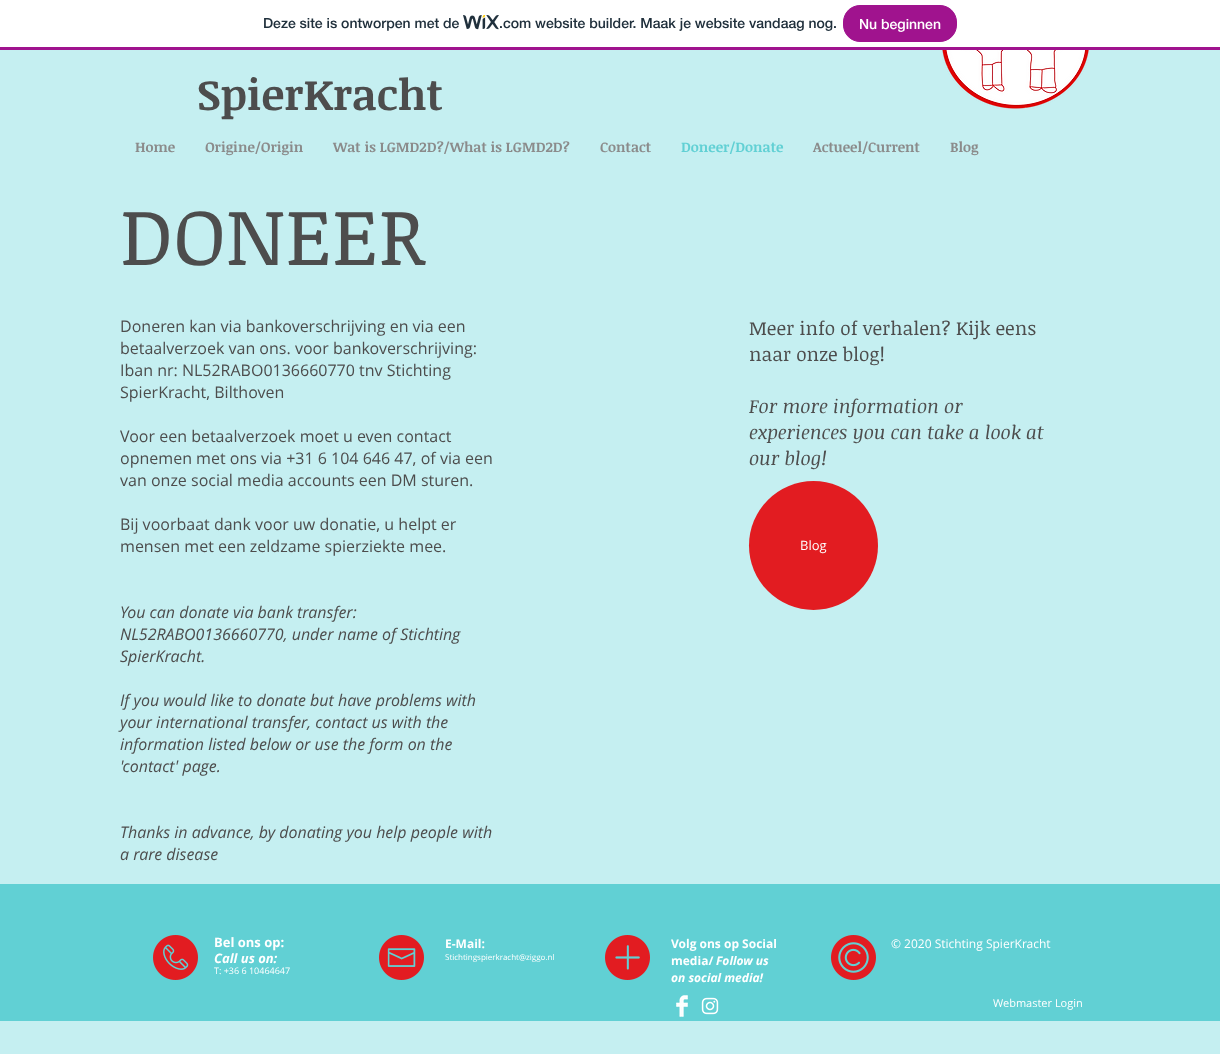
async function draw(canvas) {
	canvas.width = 1220;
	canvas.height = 1054;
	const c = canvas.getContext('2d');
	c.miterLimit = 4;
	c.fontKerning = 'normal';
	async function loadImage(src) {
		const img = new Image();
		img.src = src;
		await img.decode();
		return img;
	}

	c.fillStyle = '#c5eff1';
	c.fillRect(0, 0, 1220, 1054);
	c.fillStyle = '#fff';
	c.fillRect(0, 0, 1220, 47);
	c.fillStyle = '#a0138e';
	c.fillRect(0, 47, 1220, 3);
	c.font = '500 14px "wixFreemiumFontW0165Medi"';
	c.fillStyle = '#20303c';
	c.fillText('Deze site is ontworpen met de', 263, 28);
	c.drawImage(await loadImage('img1.png'), 463, 15, 36, 15);
	c.fillText('.com website builder. Maak je website vandaag nog.', 499, 28);
	c.fillStyle = '#a0138e';
	c.beginPath();
	c.roundRect(843.5, 5.5, 113, 36, 16.5);
	c.fill();
	c.strokeStyle = '#a0138e';
	c.stroke();
	c.fillStyle = '#fff';
	c.fillText('Nu beginnen', 859, 29);
	c.font = 'bold 43px Noticia Text';
	c.fillStyle = '#4d4d4d';
	c.fillText('SpierKracht', 197, 110);
	c.drawImage(await loadImage('img2.png'), 942, 50, 147, 59);
	c.font = 'bold 14px Noticia Text';
	c.fillStyle = '#8b8b8b';
	for (const [text, x, y] of [
		['Home', 135, 152],
		['Origine/Origin', 205, 152],
		['Wat is LGMD2D?/What is LGMD2D?', 333, 152],
		['Contact', 600, 152],
	]) {
		c.fillText(text, x, y);
	}
	c.fillStyle = '#61d0d4';
	c.fillText('Doneer/Donate', 681, 152);
	c.fillStyle = '#8b8b8b';
	c.fillText('Actueel/Current', 813, 152);
	c.fillText('Blog', 950, 152);
	c.font = '80px Noticia Text';
	c.fillStyle = '#4d4d4d';
	c.fillText('DONEER', 120, 265);
	c.font = '16px Open Sans';
	for (const [text, x, y] of [
		['Doneren kan via bankoverschrijving en via een', 120, 332],
		['betaalverzoek van ons. voor bankoverschrijving:', 120, 354],
		['Iban nr: NL52RABO0136660770 tnv Stichting', 120, 376],
		['SpierKracht, Bilthoven', 120, 398],
		['Voor een betaalverzoek moet u even contact', 120, 442],
		['opnemen met ons via +31 6 104 646 47, of via een', 120, 464],
		['van onze social media accounts een DM sturen.', 120, 486],
		['Bij voorbaat dank voor uw donatie, u helpt er', 120, 530],
		['mensen met een zeldzame spierziekte mee.', 120, 552],
	]) {
		c.fillText(text, x, y);
	}
	c.font = 'italic 16px Open Sans';
	for (const [text, x, y] of [
		['You can donate via bank transfer:', 120, 618],
		['NL52RABO0136660770, under name of Stichting', 120, 640],
		['SpierKracht.', 120, 662],
		['If you would like to donate but have problems with', 120, 706],
		['your international transfer, contact us with the', 120, 728],
		['information listed below or use the form on the', 120, 750],
		['\'contact\' page.', 120, 772],
		['Thanks in advance, by donating you help people with', 120, 838],
		['a rare disease', 120, 860],
	]) {
		c.fillText(text, x, y);
	}
	c.font = '19px Noticia Text';
	c.fillText('Meer info of verhalen? Kijk eens', 749, 335);
	c.fillText('naar onze blog!', 749, 361);
	c.font = 'italic 19px Noticia Text';
	for (const [text, x, y] of [
		['For more information or', 749, 413],
		['experiences you can take a look at', 749, 439],
		['our blog!', 749, 465],
	]) {
		c.fillText(text, x, y);
	}
	c.fillStyle = '#e21c21';
	c.beginPath();
	c.arc(813.5, 545.5, 64.5, 0, 2 * Math.PI);
	c.fill();
	c.font = '13px Open Sans';
	c.fillStyle = '#fff';
	c.fillText('Blog', 800, 550);
	c.fillStyle = '#61d0d4';
	c.fillRect(0, 884, 1220, 137);
	c.drawImage(await loadImage('img3.png'), 153, 935, 45, 45);
	c.font = 'bold 13px Open Sans';
	c.fillStyle = '#fff';
	c.fillText('Bel ons op:', 214, 947);
	c.font = 'italic bold 13px Open Sans';
	c.fillText('Call us on:', 214, 963);
	c.font = '9px Open Sans';
	c.fillText('T: +36 6 10464647', 214, 974);
	c.drawImage(await loadImage('img4.png'), 379, 935, 45, 45);
	c.font = 'bold 12px Open Sans';
	c.fillText('E-Mail:', 445, 948);
	c.font = '8px Open Sans';
	c.fillText('Stichtingspierkracht@ziggo.nl', 445, 960);
	c.drawImage(await loadImage('img5.png'), 605, 935, 45, 45);
	c.font = 'bold 12px Open Sans';
	c.fillText('Volg ons op Social', 671, 948);
	c.fillText('media/', 671, 965);
	c.font = 'italic bold 12px Open Sans';
	c.fillText('Follow us', 716, 965);
	c.fillText('on social media!', 671, 982);
	c.drawImage(await loadImage('img6.png'), 831, 935, 45, 45);
	c.font = '12px Open Sans';
	c.fillText('© 2020 Stichting SpierKracht', 891, 948);
	c.drawImage(await loadImage('img7.png'), 676, 995, 12, 22);
	c.drawImage(await loadImage('img8.png'), 701, 997, 18, 18);
	c.font = '11px Open Sans';
	c.fillText('Webmaster Login', 993, 1007);
}

draw(document.querySelector('canvas'));
